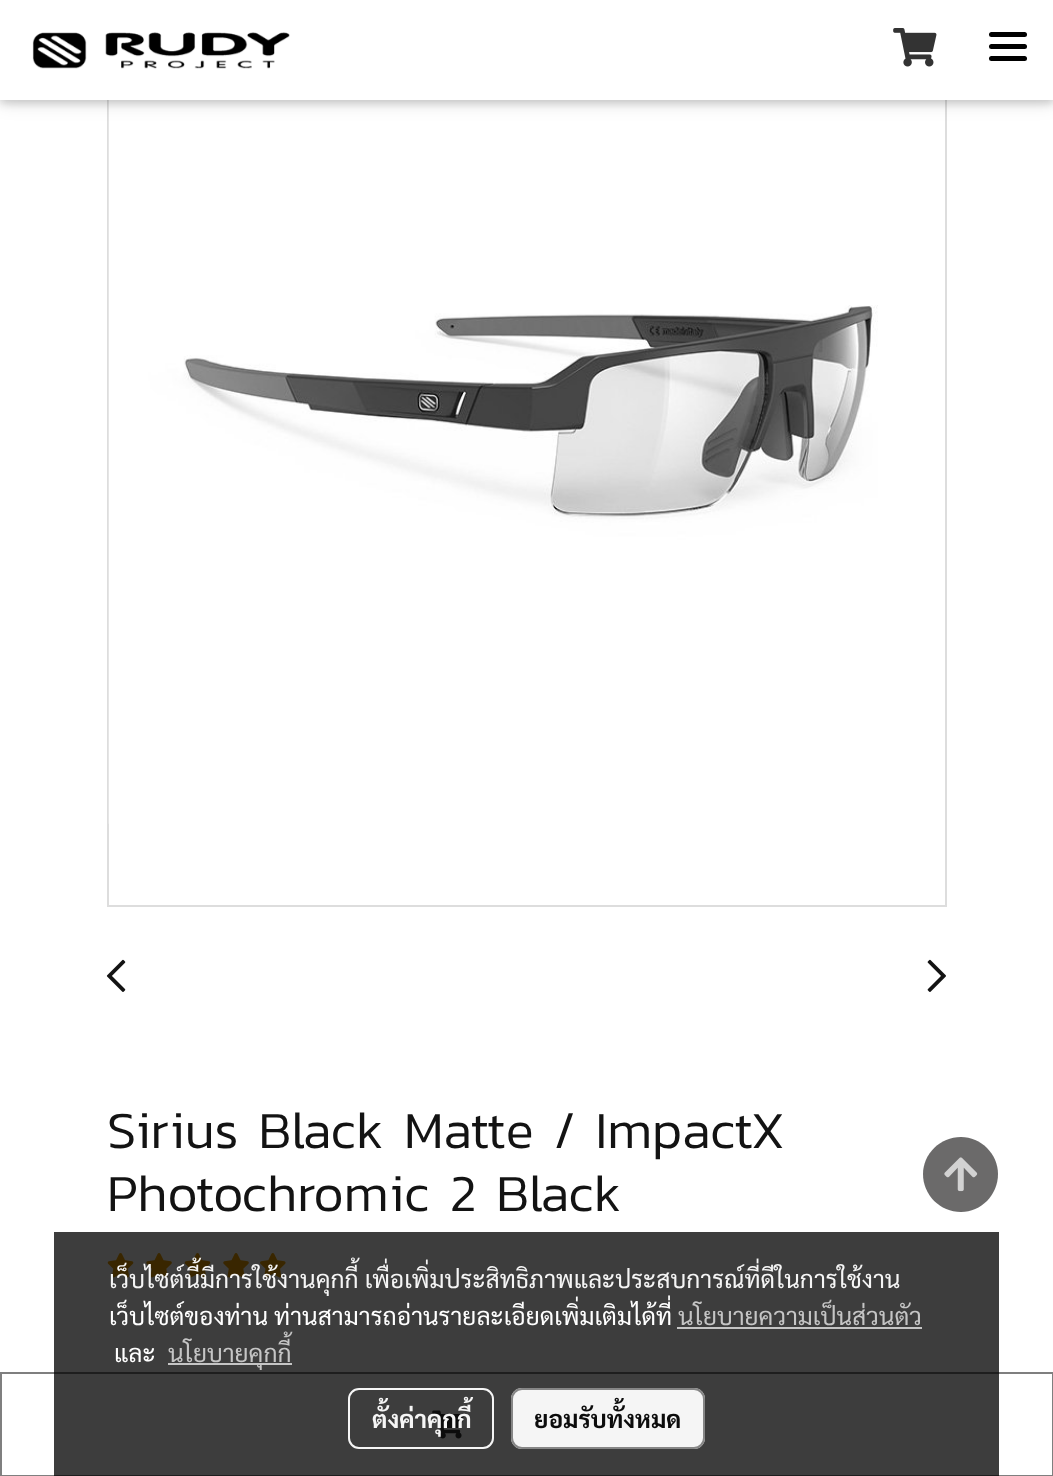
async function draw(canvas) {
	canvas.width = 1053;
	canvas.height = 1476;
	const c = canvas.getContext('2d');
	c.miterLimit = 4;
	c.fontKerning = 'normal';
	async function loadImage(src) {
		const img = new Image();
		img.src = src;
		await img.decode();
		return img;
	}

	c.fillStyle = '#fff';
	c.fillRect(0, 0, 1053, 1476);
	c.strokeStyle = '#ddd';
	c.lineWidth = 2;
	c.strokeRect(108, -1, 838, 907);
	c.drawImage(await loadImage('img3.png'), 108, 100, 770, 724);
	c.fillStyle = '#0000001f';
	c.filter = 'blur(9px)';
	c.beginPath();
	c.rect(0, 4, 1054, 99);
	c.fill();
	c.filter = 'none';
	c.fillStyle = '#00000029';
	c.filter = 'blur(4.5px)';
	c.beginPath();
	c.rect(0, 4, 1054, 99);
	c.fill();
	c.filter = 'none';
	c.fillStyle = '#fff';
	c.fillRect(0, 0, 1053, 100);
	c.drawImage(await loadImage('img1.png'), 32, 32, 258, 37);
	c.drawImage(await loadImage('img2.png'), 893, 28, 44, 39);
	c.fillStyle = '#000';
	c.beginPath();
	c.roundRect(989, 44, 38, 5, 2.5);
	c.fill();
	c.beginPath();
	c.roundRect(989, 32, 38, 5, 2.5);
	c.fill();
	c.beginPath();
	c.roundRect(989, 56, 38, 5, 2.5);
	c.fill();
	c.drawImage(await loadImage('img4.png'), 106, 959, 20, 33);
	c.drawImage(await loadImage('img5.png'), 927, 959, 19, 33);
	c.font = '300 52.5px Kanit';
	c.fillStyle = '#131313';
	c.fillText('Sirius Black Matte / ImpactX', 107, 1148);
	c.fillText('Photochromic 2 Black', 107, 1211);
	c.drawImage(await loadImage('img6.png'), 107, 1253, 27, 25);
	c.drawImage(await loadImage('img7.png'), 146, 1253, 26, 25);
	c.drawImage(await loadImage('img6.png'), 184, 1253, 27, 25);
	c.drawImage(await loadImage('img7.png'), 223, 1253, 26, 25);
	c.drawImage(await loadImage('img8.png'), 260, 1253, 26, 25);
	c.strokeStyle = '#7f7f7f';
	c.strokeRect(1, 1373, 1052, 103);
	c.drawImage(await loadImage('img9.png'), 432, 1410, 32, 29);
	c.fillStyle = '#6b6a6a';
	c.beginPath();
	c.moveTo(961, 1137);
	c.bezierCurveTo(940, 1137, 923, 1154, 923, 1174);
	c.bezierCurveTo(923, 1195, 940, 1212, 961, 1212);
	c.bezierCurveTo(981, 1212, 998, 1195, 998, 1174);
	c.bezierCurveTo(998, 1154, 981, 1137, 961, 1137);
	c.closePath();
	c.fill();
	c.drawImage(await loadImage('img10.png'), 944, 1157, 34, 35);
	c.fillStyle = '#000000c2';
	c.fillRect(54, 1232, 945, 244);
	c.font = '24.5px Sarabun';
	c.fillStyle = '#f5f5f5';
	c.fillText('เว็บไซต์นี้มีการใช้งานคุกกี้ เพื่อเพิ่มประสิทธิภาพและประสบการณ์ที่ดีในการใช้งาน', 109, 1288);
	c.fillStyle = '#fff';
	c.fillText('เว็บไซต์ของท่าน ท่านสามารถอ่านรายละเอียดเพิ่มเติมได้ที่', 109, 1325);
	c.fillStyle = '#c5c5c5';
	c.fillText('นโยบายความเป็นส่วนตัว', 678, 1325);
	c.fillRect(677, 1327, 245, 2);
	c.fillStyle = '#fff';
	c.fillText('และ', 114, 1362);
	c.fillStyle = '#c5c5c5';
	c.fillRect(168, 1363, 124, 2);
	c.fillText('นโยบายคุกกี้', 168, 1362);
	c.beginPath();
	c.roundRect(349, 1389, 144, 59, 10);
	c.strokeStyle = '#fffffff2';
	c.stroke();
	c.font = 'bold 24.5px Sarabun';
	c.fillStyle = '#f5f5f5';
	c.fillText('ตั้งค่าคุกกี้', 372, 1428);
	c.fillStyle = '#fffffff2';
	c.beginPath();
	c.roundRect(511, 1388, 194, 61, 11);
	c.fill();
	c.beginPath();
	c.roundRect(512, 1389, 192, 59, 10);
	c.strokeStyle = '#7f7f7ff2';
	c.stroke();
	c.fillStyle = '#0c0c0c';
	c.fillText('ยอมรับทั้งหมด', 534, 1428);
}

draw(document.querySelector('canvas'));
